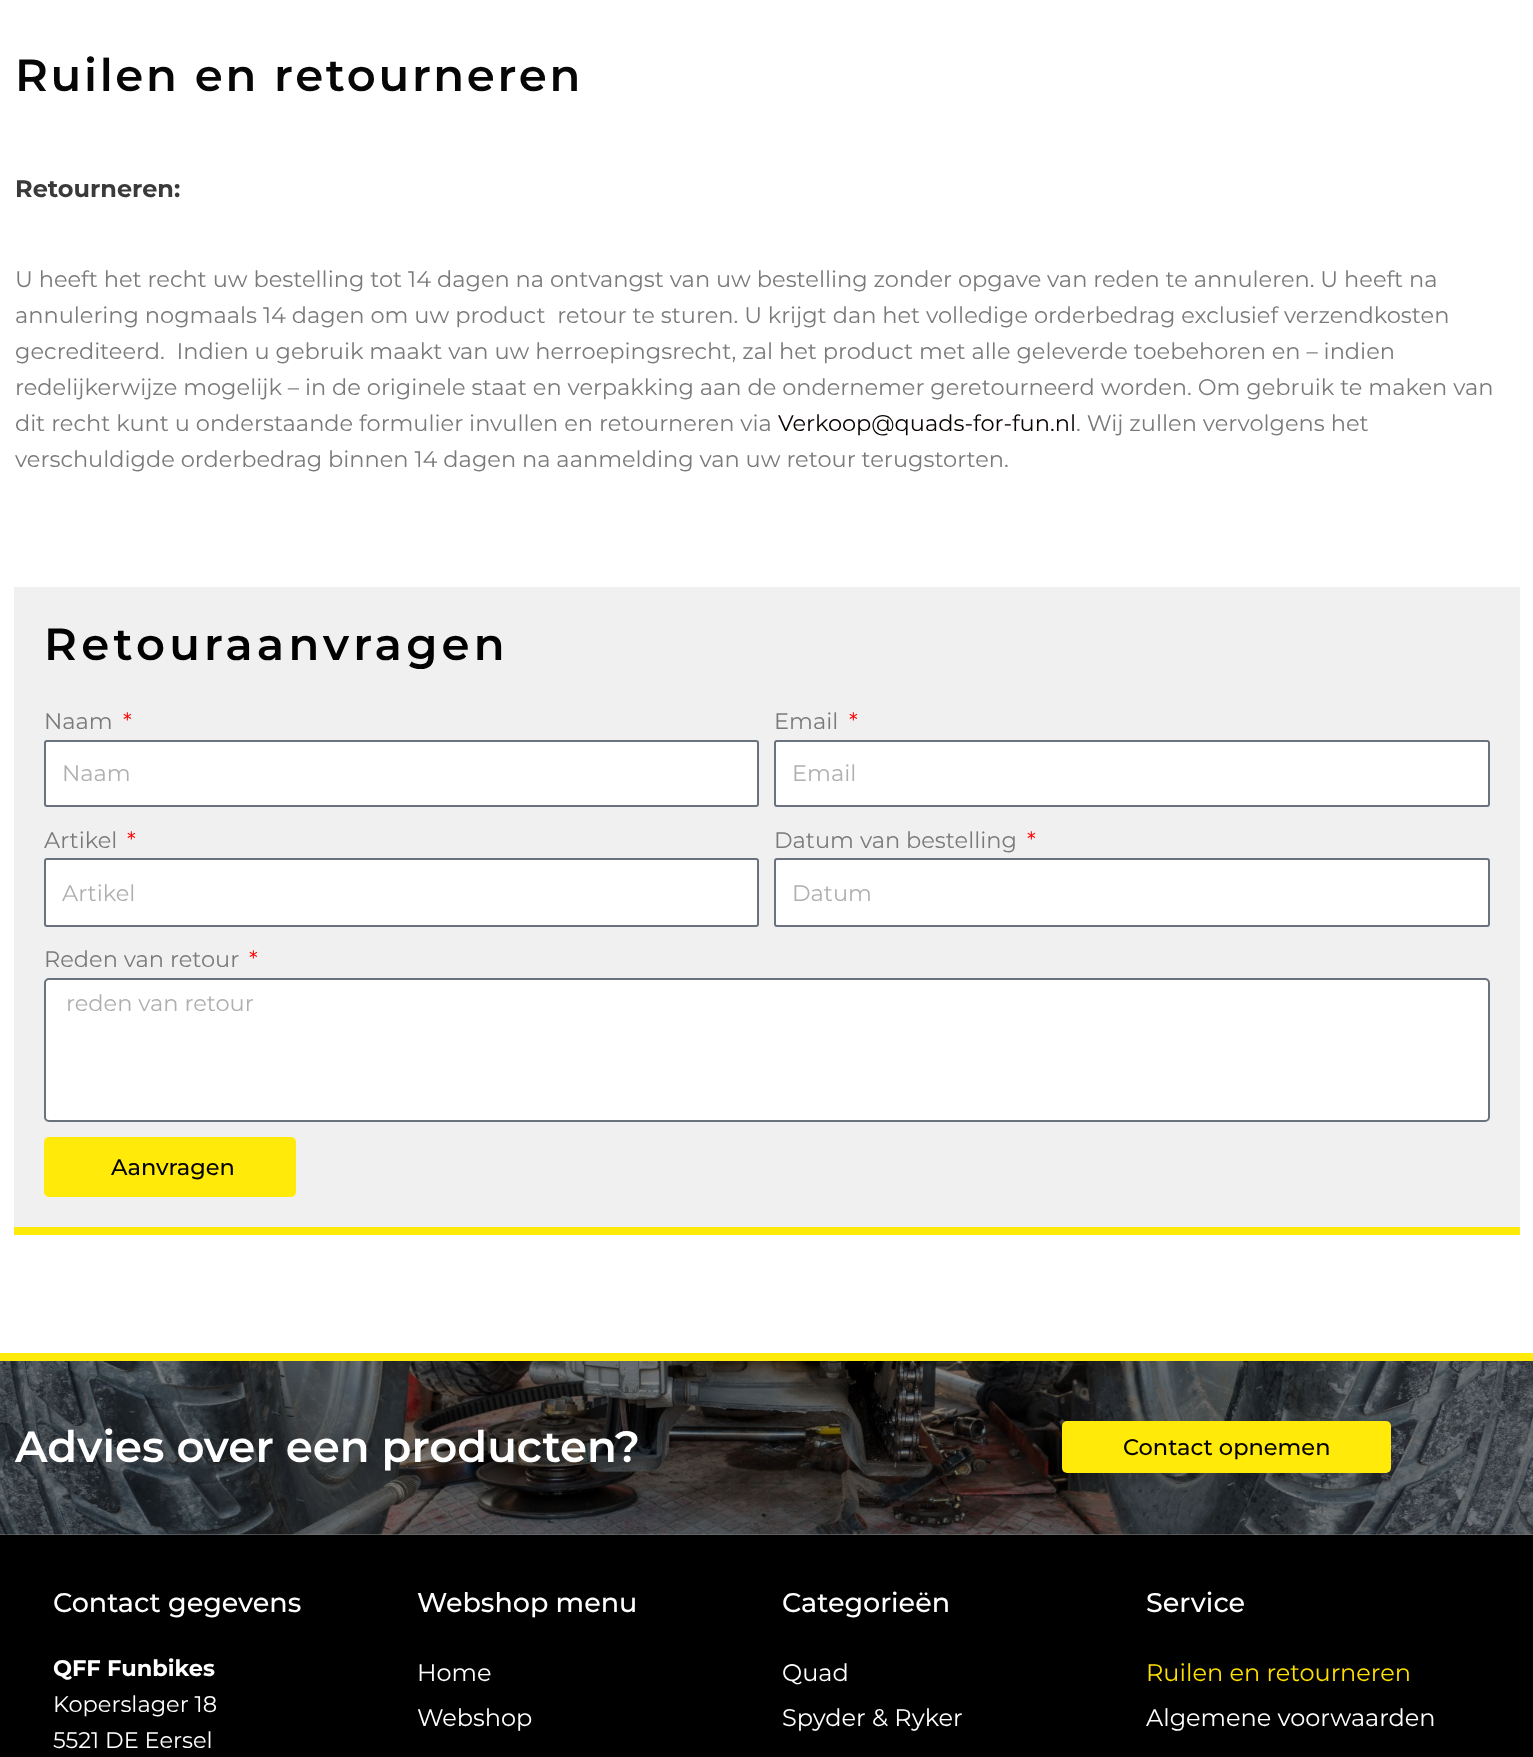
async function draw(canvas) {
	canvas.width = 1533;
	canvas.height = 1757;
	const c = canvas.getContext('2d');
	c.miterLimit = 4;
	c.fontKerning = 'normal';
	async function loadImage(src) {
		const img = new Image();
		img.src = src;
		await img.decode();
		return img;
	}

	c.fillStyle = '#fff';
	c.fillRect(0, 0, 1533, 1757);
	c.fillStyle = '#808080';
	c.fillRect(0, 1534, 1533, 1);
	c.letterSpacing = '2.7px';
	c.font = '600 45px Montserrat';
	c.fillStyle = '#070707';
	c.fillText('Ruilen en retourneren', 15, 91);
	c.letterSpacing = '0px';
	c.font = 'bold 24px Montserrat';
	c.fillStyle = '#3a3a3a';
	c.fillText('Retourneren:', 15, 197);
	c.font = '22.5px Montserrat';
	c.fillStyle = '#7a7a7a';
	for (const [text, x, y] of [
		['U heeft het recht uw bestelling tot 14 dagen na ontvangst van uw bestelling zonder opgave van reden te annuleren. U heeft na', 15, 287],
		['annulering nogmaals 14 dagen om uw product  retour te sturen. U krijgt dan het volledige orderbedrag exclusief verzendkosten', 15, 323],
		['gecrediteerd.  Indien u gebruik maakt van uw herroepingsrecht, zal het product met alle geleverde toebehoren en – indien', 15, 359],
		['redelijkerwijze mogelijk – in de originele staat en verpakking aan de ondernemer geretourneerd worden. Om gebruik te maken van', 15, 395],
		['dit recht kunt u onderstaande formulier invullen en retourneren via', 15, 431],
	]) {
		c.fillText(text, x, y);
	}
	c.fillStyle = '#0a0000';
	c.fillText('Verkoop@quads-for-fun.nl', 778, 431);
	c.fillStyle = '#7a7a7a';
	c.fillText('. Wij zullen vervolgens het', 1076, 431);
	c.fillText('verschuldigde orderbedrag binnen 14 dagen na aanmelding van uw retour terugstorten.', 15, 467);
	c.fillStyle = '#f0f0f0';
	c.fillRect(14, 587, 1506, 640);
	c.fillStyle = '#ffea09';
	c.fillRect(14, 1227, 1506, 8);
	c.letterSpacing = '4.25px';
	c.font = '600 45px Montserrat';
	c.fillStyle = '#020101';
	c.fillText('Retouraanvragen', 44, 660);
	c.letterSpacing = '0px';
	c.font = '22.5px Montserrat';
	c.fillStyle = '#7a7a7a';
	c.fillText('Naam', 44, 729);
	c.fillStyle = '#f00';
	c.fillText('*', 123, 729);
	c.fillStyle = '#fff';
	c.beginPath();
	c.roundRect(45, 741, 713, 65, 2);
	c.fill();
	c.strokeStyle = '#69727d';
	c.lineWidth = 2;
	c.stroke();
	c.fillStyle = '#afafaf';
	c.fillText('Naam', 62, 781);
	c.fillStyle = '#7a7a7a';
	c.fillText('Email', 774, 729);
	c.fillStyle = '#f00';
	c.fillText('*', 849, 729);
	c.fillStyle = '#fff';
	c.beginPath();
	c.roundRect(775, 741, 714, 65, 2);
	c.fill();
	c.stroke();
	c.fillStyle = '#afafaf';
	c.fillText('Email', 792, 781);
	c.fillStyle = '#7a7a7a';
	c.fillText('Artikel', 44, 848);
	c.fillStyle = '#f00';
	c.fillText('*', 127, 848);
	c.fillStyle = '#fff';
	c.beginPath();
	c.roundRect(45, 859, 713, 67, 2);
	c.fill();
	c.stroke();
	c.fillStyle = '#afafaf';
	c.fillText('Artikel', 62, 901);
	c.fillStyle = '#7a7a7a';
	c.fillText('Datum van bestelling', 774, 848);
	c.fillStyle = '#f00';
	c.fillText('*', 1027, 848);
	c.fillStyle = '#fff';
	c.beginPath();
	c.roundRect(775, 859, 714, 67, 2);
	c.fill();
	c.stroke();
	c.fillStyle = '#afafaf';
	c.fillText('Datum', 792, 901);
	c.fillStyle = '#7a7a7a';
	c.fillText('Reden van retour', 44, 967);
	c.fillStyle = '#f00';
	c.fillText('*', 249, 967);
	c.fillStyle = '#fff';
	c.beginPath();
	c.roundRect(45, 979, 1444, 142, 4);
	c.fill();
	c.stroke();
	c.fillStyle = '#afafaf';
	c.fillText('reden van retour', 66, 1011);
	c.fillStyle = '#ffea09';
	c.beginPath();
	c.roundRect(44, 1137, 252, 60, 5);
	c.fill();
	c.font = '500 22.5px Montserrat';
	c.fillStyle = '#020101';
	c.fillText('Aanvragen', 111, 1175);
	c.drawImage(await loadImage('img1.png'), 0, 1361, 1533, 174);
	c.fillStyle = '#ffea09';
	c.fillRect(0, 1353, 1533, 8);
	c.font = '600 43.5px Montserrat';
	c.fillStyle = '#fff';
	c.fillText('Advies over een producten?', 15, 1462);
	c.fillStyle = '#ffea09';
	c.beginPath();
	c.roundRect(1062, 1421, 329, 52, 5);
	c.fill();
	c.font = '500 22.5px Montserrat';
	c.fillStyle = '#020101';
	c.fillText('Contact opnemen', 1123, 1455);
	c.fillStyle = '#000';
	c.fillRect(0, 1535, 1533, 222);
	c.font = '500 27px Montserrat';
	c.fillStyle = '#fff';
	c.fillText('Contact gegevens', 53, 1612);
	c.font = 'bold 22.5px Montserrat';
	c.fillText('QFF Funbikes', 53, 1676);
	c.font = '22.5px Montserrat';
	c.fillText('Koperslager 18', 53, 1712);
	c.fillText('5521 DE Eersel', 53, 1748);
	c.font = '500 27px Montserrat';
	c.fillText('Webshop menu', 417, 1612);
	c.font = '24px Montserrat';
	c.fillText('Home', 417, 1681);
	c.fillText('Webshop', 417, 1726);
	c.font = '500 27px Montserrat';
	c.fillText('Categorieën', 782, 1612);
	c.font = '24px Montserrat';
	c.fillText('Quad', 782, 1681);
	c.fillText('Spyder & Ryker', 782, 1726);
	c.font = '500 27px Montserrat';
	c.fillText('Service', 1146, 1612);
	c.font = '24px Montserrat';
	c.fillStyle = '#ffdf00';
	c.fillText('Ruilen en retourneren', 1146, 1681);
	c.fillStyle = '#fff';
	c.fillText('Algemene voorwaarden', 1146, 1726);
}

draw(document.querySelector('canvas'));
